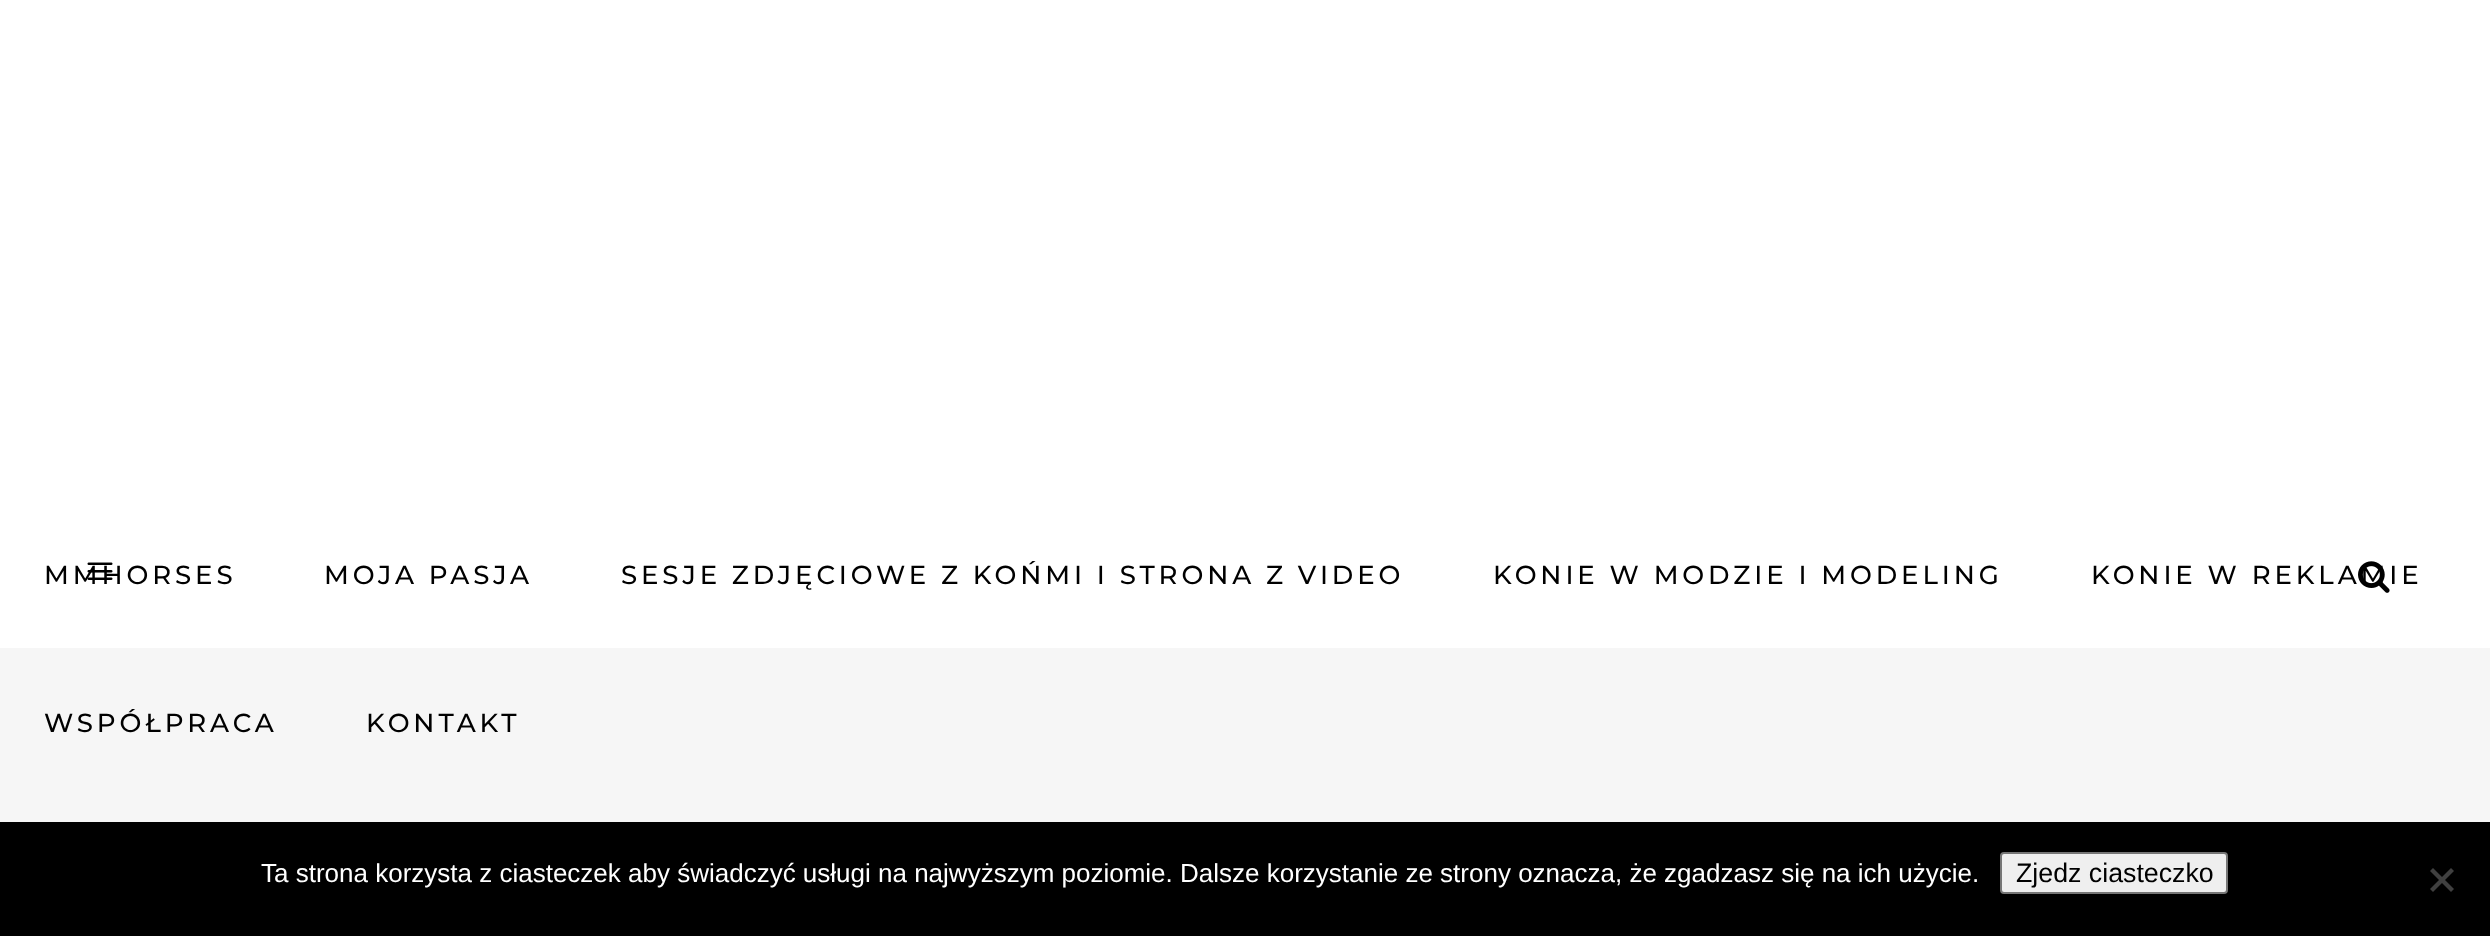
async function draw(canvas) {
	canvas.width = 2490;
	canvas.height = 936;
	const c = canvas.getContext('2d');
	c.miterLimit = 4;
	c.fontKerning = 'normal';
	async function loadImage(src) {
		const img = new Image();
		img.src = src;
		await img.decode();
		return img;
	}

	c.fillStyle = '#fff';
	c.fillRect(0, 0, 2490, 936);
	c.letterSpacing = '3.9px';
	c.font = '500 26px Montserrat';
	c.fillStyle = '#000';
	for (const [text, x, y] of [
		['MMHORSES', 44, 584],
		['MOJA PASJA', 324, 584],
		['SESJE ZDJĘCIOWE Z KOŃMI I STRONA Z VIDEO', 621, 584],
		['KONIE W MODZIE I MODELING', 1493, 584],
		['KONIE W REKLAMIE', 2091, 584],
	]) {
		c.fillText(text, x, y);
	}
	c.fillStyle = '#f6f6f6';
	c.fillRect(0, 648, 2490, 174);
	c.fillStyle = '#000';
	c.fillText('WSPÓŁPRACA', 44, 732);
	c.fillText('KONTAKT', 366, 732);
	c.drawImage(await loadImage('img1.png'), 87, 562, 26, 18);
	c.drawImage(await loadImage('img2.png'), 2358, 561, 32, 32);
	c.fillRect(0, 822, 2490, 114);
	c.letterSpacing = '0px';
	c.font = '26px Liberation Sans';
	c.fillStyle = '#fff';
	c.fillText('Ta strona korzysta z ciasteczek aby świadczyć usługi na najwyższym poziomie. Dalsze korzystanie ze strony oznacza, że zgadzasz się na ich użycie.', 261, 882);
	c.fillStyle = '#efefef';
	c.beginPath();
	c.roundRect(2001, 853, 226, 40, 3);
	c.fill();
	c.strokeStyle = '#767676';
	c.lineWidth = 2;
	c.stroke();
	c.font = '26.75px Liberation Sans';
	c.fillStyle = '#000';
	c.fillText('Zjedz ciasteczko', 2016, 882);
	c.fillStyle = '#404040';
	c.beginPath();
	c.moveTo(2451, 868);
	c.lineTo(2454, 871);
	c.lineTo(2433, 892);
	c.lineTo(2430, 889);
	c.closePath();
	c.fill();
	c.beginPath();
	c.moveTo(2430, 871);
	c.lineTo(2433, 868);
	c.lineTo(2454, 889);
	c.lineTo(2451, 892);
	c.closePath();
	c.fill();
}

draw(document.querySelector('canvas'));
